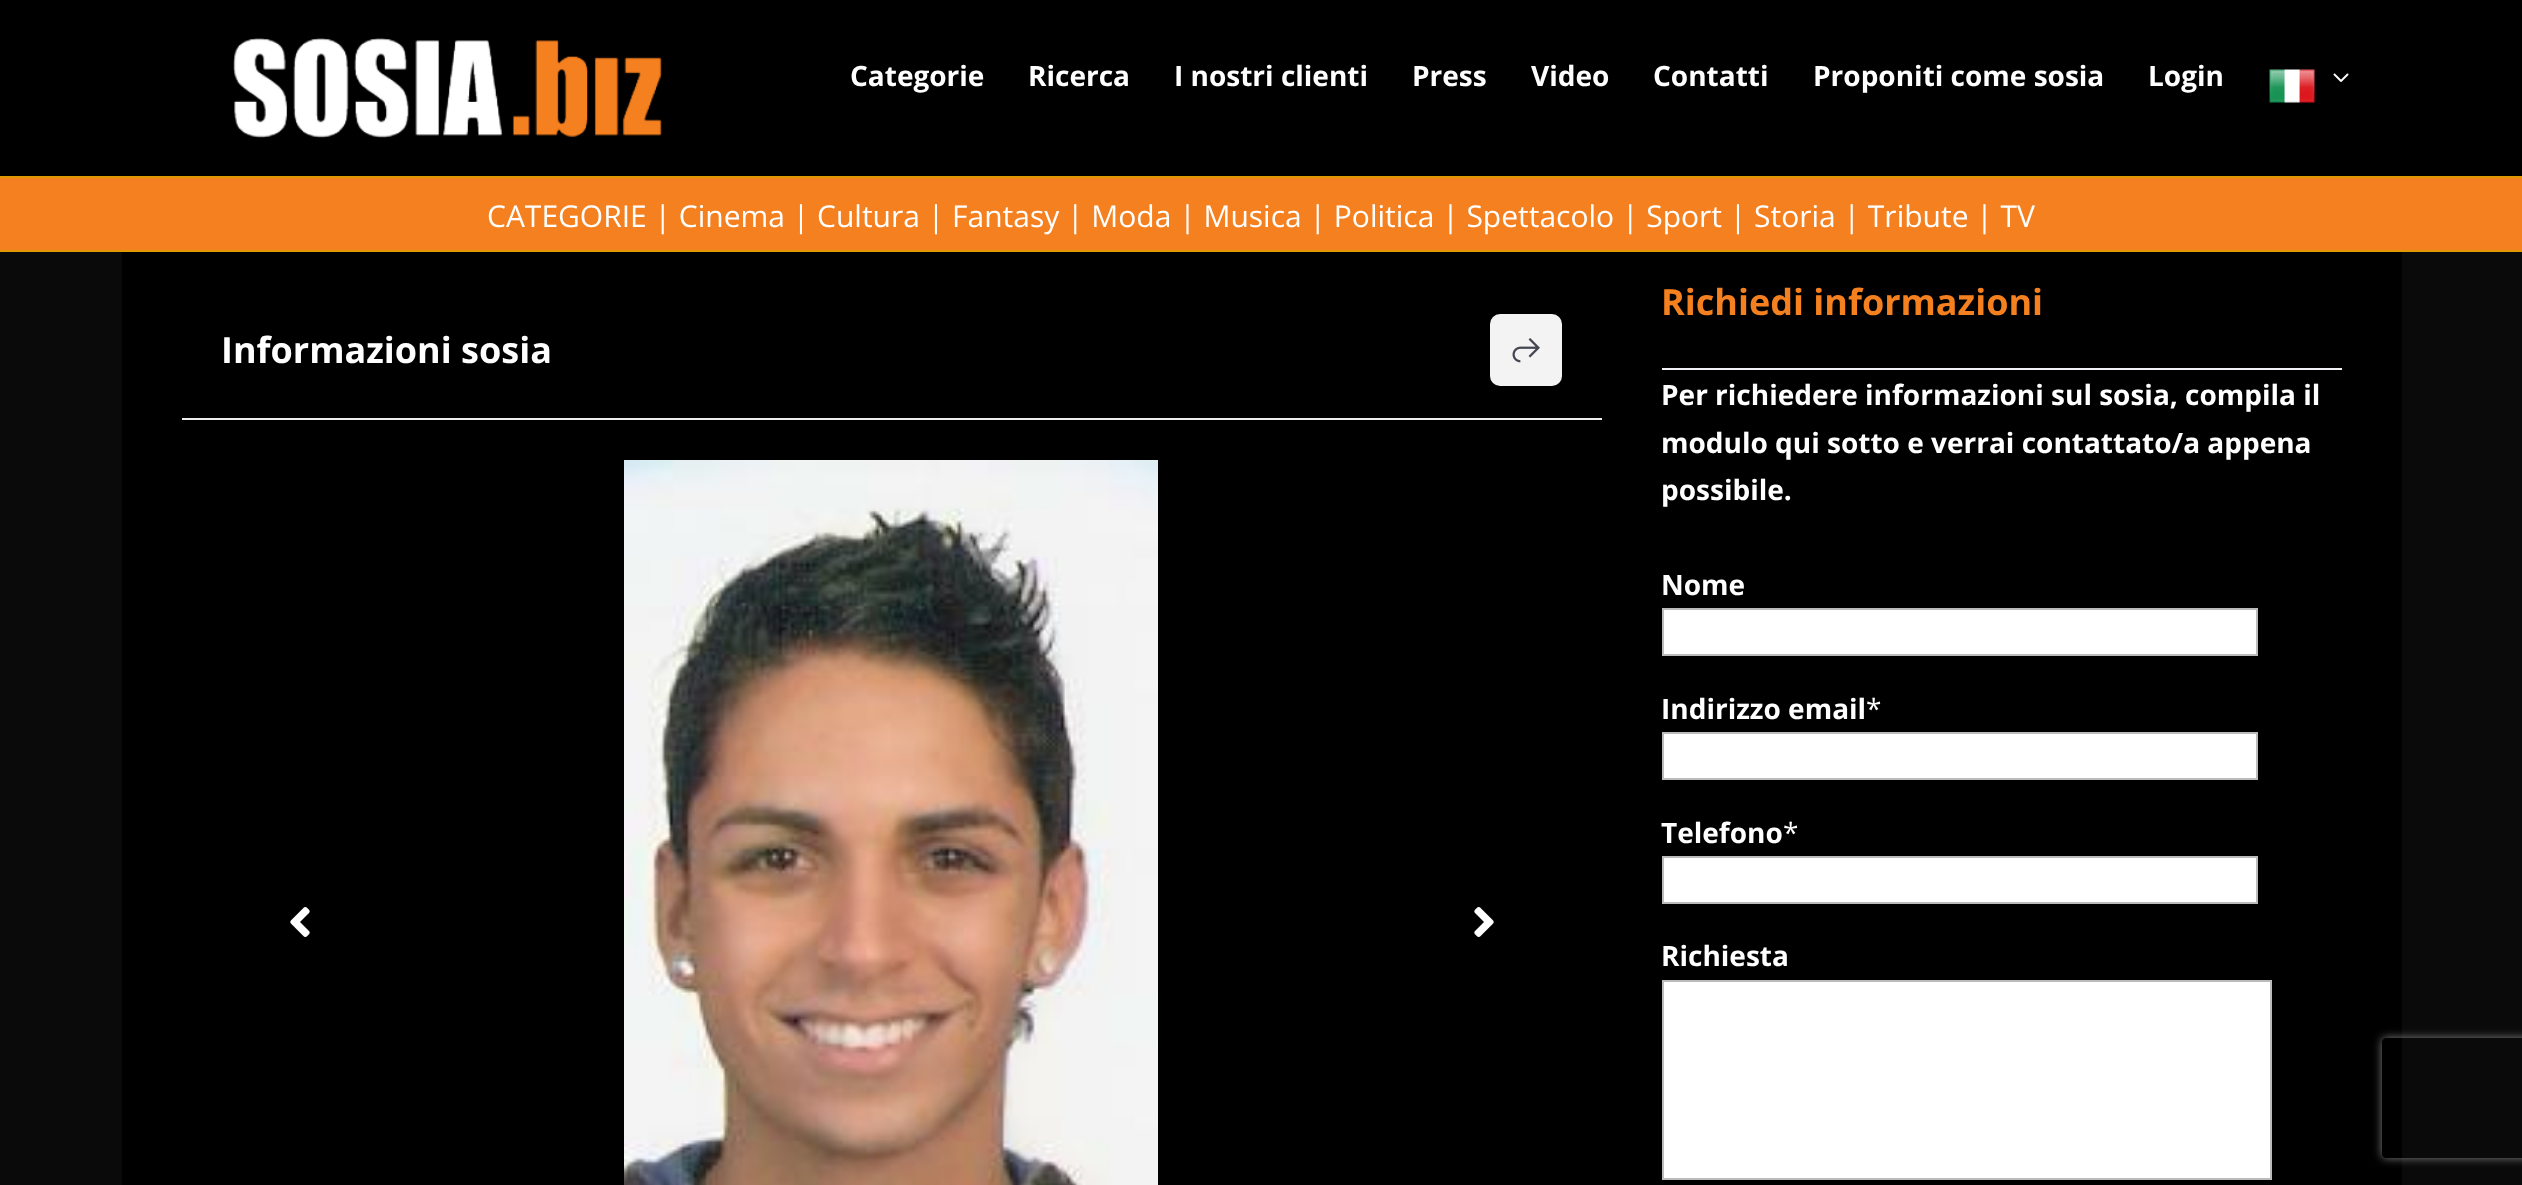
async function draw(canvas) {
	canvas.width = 2522;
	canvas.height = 1185;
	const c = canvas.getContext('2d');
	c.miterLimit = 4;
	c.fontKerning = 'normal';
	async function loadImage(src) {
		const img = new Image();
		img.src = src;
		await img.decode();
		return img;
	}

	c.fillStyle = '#0a0a0a';
	c.fillRect(0, 0, 2522, 1185);
	c.fillStyle = '#000';
	c.fillRect(0, 0, 2522, 176);
	c.fillStyle = '#e09900';
	c.fillRect(0, 176, 2522, 2);
	c.drawImage(await loadImage('img1.png'), 233, 38, 429, 100);
	c.font = 'bold 28px Open Sans';
	c.fillStyle = '#fff';
	for (const [text, x, y] of [
		['Categorie', 850, 86],
		['Ricerca', 1028, 86],
		['I nostri clienti', 1174, 86],
		['Press', 1412, 86],
		['Video', 1531, 86],
		['Contatti', 1653, 86],
		['Proponiti come sosia', 1813, 86],
		['Login', 2148, 86],
	]) {
		c.fillText(text, x, y);
	}
	c.drawImage(await loadImage('img2.png'), 2269, 69, 46, 34);
	c.drawImage(await loadImage('img3.png'), 2333, 73, 16, 9);
	c.fillStyle = '#f5801f';
	c.fillRect(0, 178, 2522, 72);
	c.fillStyle = '#e09900';
	c.fillRect(0, 250, 2522, 2);
	c.font = '30px Open Sans';
	c.fillStyle = '#fff';
	c.fillText('CATEGORIE | Cinema | Cultura | Fantasy | Moda | Musica | Politica | Spettacolo | Sport | Storia | Tribute | TV', 487, 227);
	c.fillStyle = '#000';
	c.fillRect(122, 252, 2280, 933);
	c.fillStyle = '#ececec';
	c.fillRect(182, 418, 1420, 2);
	c.font = 'bold 36px Open Sans';
	c.fillStyle = '#fff';
	c.fillText('Informazioni sosia', 221, 363);
	c.fillStyle = '#f3f3f3';
	c.beginPath();
	c.roundRect(1490, 314, 72, 72, 10);
	c.fill();
	c.drawImage(await loadImage('img4.png'), 1512, 338, 28, 25);
	c.drawImage(await loadImage('img5.png'), 290, 907, 20, 30);
	c.drawImage(await loadImage('img6.png'), 624, 460, 534, 725);
	c.drawImage(await loadImage('img7.png'), 1474, 907, 20, 30);
	c.fillStyle = '#eff1f6';
	c.fillRect(1662, 368, 680, 2);
	c.fillStyle = '#f5801f';
	c.fillText('Richiedi informazioni', 1661, 315);
	c.font = 'bold 28px Open Sans';
	c.fillStyle = '#fff';
	for (const [text, x, y] of [
		['Per richiedere informazioni sul sosia, compila il', 1661, 405],
		['modulo qui sotto e verrai contattato/a appena', 1661, 453],
		['possibile.', 1661, 500],
		['Nome', 1661, 595],
	]) {
		c.fillText(text, x, y);
	}
	c.beginPath();
	c.rect(1663, 609, 594, 46);
	c.fill();
	c.strokeStyle = '#bbb';
	c.lineWidth = 2;
	c.stroke();
	c.fillText('Indirizzo email', 1661, 719);
	c.font = '28px Open Sans';
	c.fillText('*', 1866, 719);
	c.beginPath();
	c.rect(1663, 733, 594, 46);
	c.fill();
	c.stroke();
	c.font = 'bold 28px Open Sans';
	c.fillText('Telefono', 1661, 843);
	c.font = '28px Open Sans';
	c.fillText('*', 1783, 843);
	c.beginPath();
	c.rect(1663, 857, 594, 46);
	c.fill();
	c.stroke();
	c.font = 'bold 28px Open Sans';
	c.fillText('Richiesta', 1661, 966);
	c.beginPath();
	c.rect(1663, 981, 608, 198);
	c.fill();
	c.stroke();
	c.save();
	c.beginPath();
	c.moveTo(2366, 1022);
	c.lineTo(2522, 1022);
	c.lineTo(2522, 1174);
	c.lineTo(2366, 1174);
	c.closePath();
	c.moveTo(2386, 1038);
	c.lineTo(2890, 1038);
	c.bezierCurveTo(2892, 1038, 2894, 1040, 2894, 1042);
	c.lineTo(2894, 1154);
	c.bezierCurveTo(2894, 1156, 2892, 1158, 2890, 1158);
	c.lineTo(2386, 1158);
	c.bezierCurveTo(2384, 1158, 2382, 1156, 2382, 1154);
	c.lineTo(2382, 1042);
	c.bezierCurveTo(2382, 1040, 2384, 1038, 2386, 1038);
	c.closePath();
	c.clip('evenodd');
	c.fillStyle = '#808080';
	c.filter = 'blur(5px)';
	c.beginPath();
	c.roundRect(2382, 1038, 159, 120, 4);
	c.fill();
	c.filter = 'none';
	c.restore();
}

draw(document.querySelector('canvas'));
